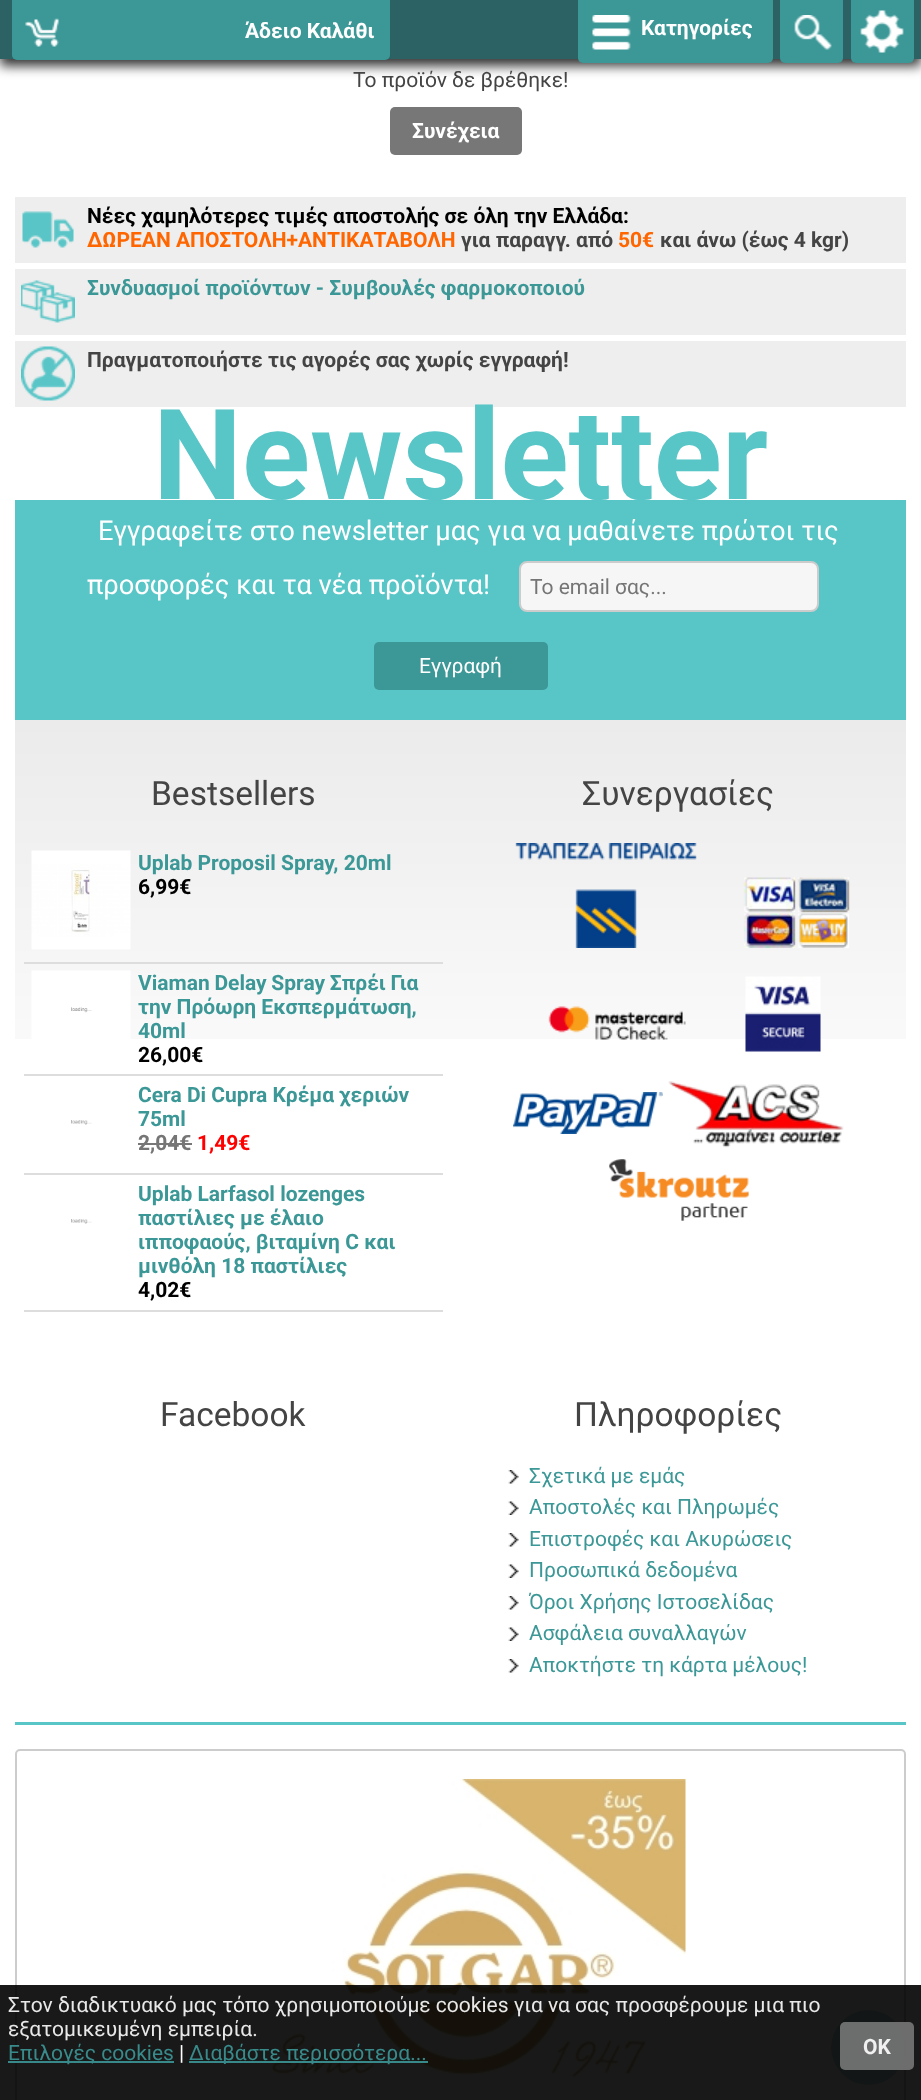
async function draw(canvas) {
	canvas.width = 921;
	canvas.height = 2100;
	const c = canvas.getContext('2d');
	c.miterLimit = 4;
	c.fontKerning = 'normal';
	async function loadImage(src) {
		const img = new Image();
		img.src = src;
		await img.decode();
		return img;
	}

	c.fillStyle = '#fff';
	c.fillRect(0, 0, 921, 2100);
	c.fillStyle = '#333';
	c.filter = 'blur(6px)';
	c.beginPath();
	c.rect(0, 8, 921, 58);
	c.fill();
	c.filter = 'none';
	c.fillStyle = '#2c6263';
	c.fillRect(0, 0, 921, 59);
	c.fillStyle = '#3c9797';
	c.beginPath();
	c.roundRect(12, 0, 378, 60, [0, 0, 5, 5]);
	c.fill();
	c.drawImage(await loadImage('img1.png'), 25, 18, 34, 29);
	c.font = 'bold 21px Roboto';
	c.fillStyle = '#fff';
	c.fillText('Άδειο Καλάθι', 245, 38);
	c.fillStyle = '#3c9797';
	c.beginPath();
	c.roundRect(578, 0, 195, 63, [0, 0, 5, 5]);
	c.fill();
	c.drawImage(await loadImage('img2.png'), 592, 15, 39, 35);
	c.fillStyle = '#fff';
	c.fillText('Κατηγορίες', 641, 35);
	c.fillStyle = '#3c9797';
	c.beginPath();
	c.roundRect(780, 0, 63, 63, [0, 0, 5, 5]);
	c.fill();
	c.drawImage(await loadImage('img3.png'), 794, 15, 38, 35);
	c.beginPath();
	c.roundRect(851, 0, 63, 63, [0, 0, 5, 5]);
	c.fill();
	c.drawImage(await loadImage('img4.png'), 860, 10, 44, 43);
	c.font = '21px Roboto';
	c.fillStyle = '#444';
	c.fillText('Το προϊόν δε βρέθηκε!', 353, 87);
	c.fillStyle = '#777';
	c.beginPath();
	c.roundRect(390, 107, 132, 48, 5);
	c.fill();
	c.font = 'bold 21px Roboto';
	c.fillStyle = '#fff';
	c.fillText('Συνέχεια', 412, 138);
	c.fillStyle = '#eee';
	c.fillRect(15, 197, 891, 66);
	c.drawImage(await loadImage('img5.png'), 22, 211, 52, 37);
	c.fillStyle = '#000';
	c.fillText('Νέες χαμηλότερες τιμές αποστολής σε όλη την Ελλάδα:', 87, 223);
	c.fillStyle = '#f60';
	c.fillText('ΔΩΡΕΑΝ ΑΠΟΣΤΟΛΗ+ΑΝΤΙΚΑΤΑΒΟΛΗ', 87, 247);
	c.fillStyle = '#444';
	c.fillText('για παραγγ. από', 461, 247);
	c.fillStyle = '#f60';
	c.fillText('50€', 618, 247);
	c.fillStyle = '#444';
	c.fillText('και άνω (έως 4 kgr)', 660, 247);
	c.fillStyle = '#eee';
	c.fillRect(15, 269, 891, 66);
	c.drawImage(await loadImage('img6.png'), 21, 280, 54, 43);
	c.fillStyle = '#3c9797';
	c.fillText('Συνδυασμοί προϊόντων - Συμβουλές φαρμοκοποιού', 87, 295);
	c.fillStyle = '#eee';
	c.fillRect(15, 341, 891, 66);
	c.drawImage(await loadImage('img7.png'), 21, 346, 54, 55);
	c.fillStyle = '#444';
	c.fillText('Πραγματοποιήστε τις αγορές σας χωρίς εγγραφή!', 87, 367);
	c.fillStyle = '#58c5c7';
	c.fillRect(15, 500, 891, 220);
	c.font = 'bold 126px Roboto';
	c.fillText('Newsletter', 153, 499);
	c.font = '27.3px Roboto';
	c.fillStyle = '#fff';
	c.fillText('Εγγραφείτε στο newsletter μας για να μαθαίνετε πρώτοι τις', 98, 540);
	c.fillText('προσφορές και τα νέα προϊόντα!', 87, 594);
	c.fillStyle = '#f6f6f6';
	c.beginPath();
	c.roundRect(520, 562, 298, 49, 7);
	c.fill();
	c.strokeStyle = '#ccc';
	c.lineWidth = 2;
	c.stroke();
	c.font = '21px Roboto';
	c.fillStyle = '#757575';
	c.fillText('Το email σας...', 530, 594);
	c.fillStyle = '#3c9797';
	c.beginPath();
	c.roundRect(374, 642, 174, 48, 5);
	c.fill();
	c.fillStyle = '#fff';
	c.fillText('Εγγραφή', 419, 673);
	c.drawImage(await loadImage('img8.png'), 15, 720, 891, 319);
	c.font = '33.5px Roboto';
	c.fillStyle = '#444';
	c.fillText('Bestsellers', 151, 805);
	c.fillStyle = '#ddd';
	c.fillRect(24, 962, 419, 2);
	c.drawImage(await loadImage('img9.png'), 31, 850, 100, 100);
	c.font = 'bold 21px Roboto';
	c.fillStyle = '#3c9797';
	c.fillText('Uplab Proposil Spray, 20ml', 138, 870);
	c.fillStyle = '#000';
	c.fillText('6,99€', 138, 894);
	c.fillStyle = '#ddd';
	c.fillRect(24, 1074, 419, 2);
	c.drawImage(await loadImage('img10.png'), 31, 970, 100, 78);
	c.wordSpacing = '-0.5px';
	c.fillStyle = '#3c9797';
	c.fillText('Viaman Delay Spray Σπρέι Για', 138, 990);
	c.wordSpacing = '0px';
	c.fillText('την Πρόωρη Εκσπερμάτωση,', 138, 1014);
	c.fillText('40ml', 138, 1038);
	c.fillStyle = '#000';
	c.fillText('26,00€', 138, 1062);
	c.fillStyle = '#ddd';
	c.fillRect(24, 1173, 419, 2);
	c.drawImage(await loadImage('img11.png'), 71, 1120, 21, 5);
	c.fillStyle = '#3c9797';
	c.fillText('Cera Di Cupra Κρέμα χεριών', 138, 1102);
	c.fillText('75ml', 138, 1126);
	c.fillStyle = '#757575';
	c.fillText('2,04€', 138, 1150);
	c.fillStyle = '#777';
	c.fillRect(138, 1143, 54, 2);
	c.fillStyle = '#f00';
	c.fillText('1,49€', 197, 1150);
	c.fillStyle = '#ddd';
	c.fillRect(24, 1310, 419, 2);
	c.drawImage(await loadImage('img11.png'), 71, 1219, 21, 5);
	c.fillStyle = '#3c9797';
	for (const [text, x, y] of [
		['Uplab Larfasol lozenges', 138, 1201],
		['παστίλιες με έλαιο', 138, 1225],
		['ιπποφαούς, βιταμίνη C και', 138, 1249],
		['μινθόλη 18 παστίλιες', 138, 1273],
	]) {
		c.fillText(text, x, y);
	}
	c.fillStyle = '#000';
	c.fillText('4,02€', 138, 1297);
	c.font = '33.5px Roboto';
	c.fillStyle = '#444';
	c.fillText('Συνεργασίες', 582, 805);
	c.drawImage(await loadImage('img12.png'), 515, 843, 182, 105);
	c.drawImage(await loadImage('img13.png'), 743, 877, 107, 71);
	c.drawImage(await loadImage('img14.png'), 548, 1006, 138, 34);
	c.drawImage(await loadImage('img15.png'), 745, 976, 76, 76);
	c.drawImage(await loadImage('img16.png'), 513, 1092, 150, 42);
	c.drawImage(await loadImage('img17.png'), 668, 1081, 176, 67);
	c.drawImage(await loadImage('img18.png'), 609, 1159, 140, 62);
	c.fillText('Facebook', 160, 1426);
	c.fillText('Πληροφορίες', 574, 1426);
	c.drawImage(await loadImage('img19.png'), 508, 1470, 11, 14);
	c.font = '21px Roboto';
	c.fillStyle = '#3c9797';
	c.fillText('Σχετικά με εμάς', 529, 1483);
	c.drawImage(await loadImage('img20.png'), 508, 1501, 11, 14);
	c.fillText('Αποστολές και Πληρωμές', 529, 1514);
	c.drawImage(await loadImage('img19.png'), 508, 1533, 11, 14);
	c.fillText('Επιστροφές και Ακυρώσεις', 529, 1546);
	c.drawImage(await loadImage('img20.png'), 508, 1564, 11, 14);
	c.fillText('Προσωπικά δεδομένα', 529, 1577);
	c.drawImage(await loadImage('img19.png'), 508, 1596, 11, 14);
	c.fillText('Όροι Χρήσης Ιστοσελίδας', 529, 1609);
	c.drawImage(await loadImage('img20.png'), 508, 1627, 11, 14);
	c.fillText('Ασφάλεια συναλλαγών', 529, 1640);
	c.drawImage(await loadImage('img19.png'), 508, 1659, 11, 14);
	c.fillText('Αποκτήστε τη κάρτα μέλους!', 529, 1672);
	c.fillStyle = '#58c5c7';
	c.fillRect(15, 1722, 891, 3);
	c.beginPath();
	c.roundRect(16, 1750, 889, 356, 4);
	c.stroke();
	c.drawImage(await loadImage('img21.png'), 270, 1779, 416, 299);
	c.fillStyle = '#3c97974d';
	c.beginPath();
	c.arc(868.5, 2047.5, 37.5, 0, 2 * Math.PI);
	c.fill();
	c.drawImage(await loadImage('img22.png'), 856, 2040, 25, 15);
	c.fillStyle = '#000000e6';
	c.fillRect(0, 1985, 921, 115);
	c.fillStyle = '#e8e8e8';
	c.fillText('Στον διαδικτυακό μας τόπο χρησιμοποιούμε cookies για να σας προσφέρουμε μια πιο', 8, 2012);
	c.fillText('εξατομικευμένη εμπειρία.', 8, 2036);
	c.fillStyle = '#3c9797e6';
	c.fillRect(8, 2061, 166, 2);
	c.fillStyle = '#398b8b';
	c.fillText('Επιλογές cookies', 8, 2060);
	c.fillStyle = '#fff';
	c.fillText('|', 179, 2060);
	c.fillStyle = '#3c9797e6';
	c.fillRect(189, 2061, 239, 2);
	c.fillStyle = '#398b8b';
	c.fillText('Διαβάστε περισσότερα...', 189, 2060);
	c.fillStyle = '#777777e6';
	c.beginPath();
	c.roundRect(840, 2022, 74, 48, 5);
	c.fill();
	c.font = 'bold 21px Roboto';
	c.fillStyle = '#f0f0f0';
	c.fillText('OK', 863, 2054);
}

draw(document.querySelector('canvas'));
